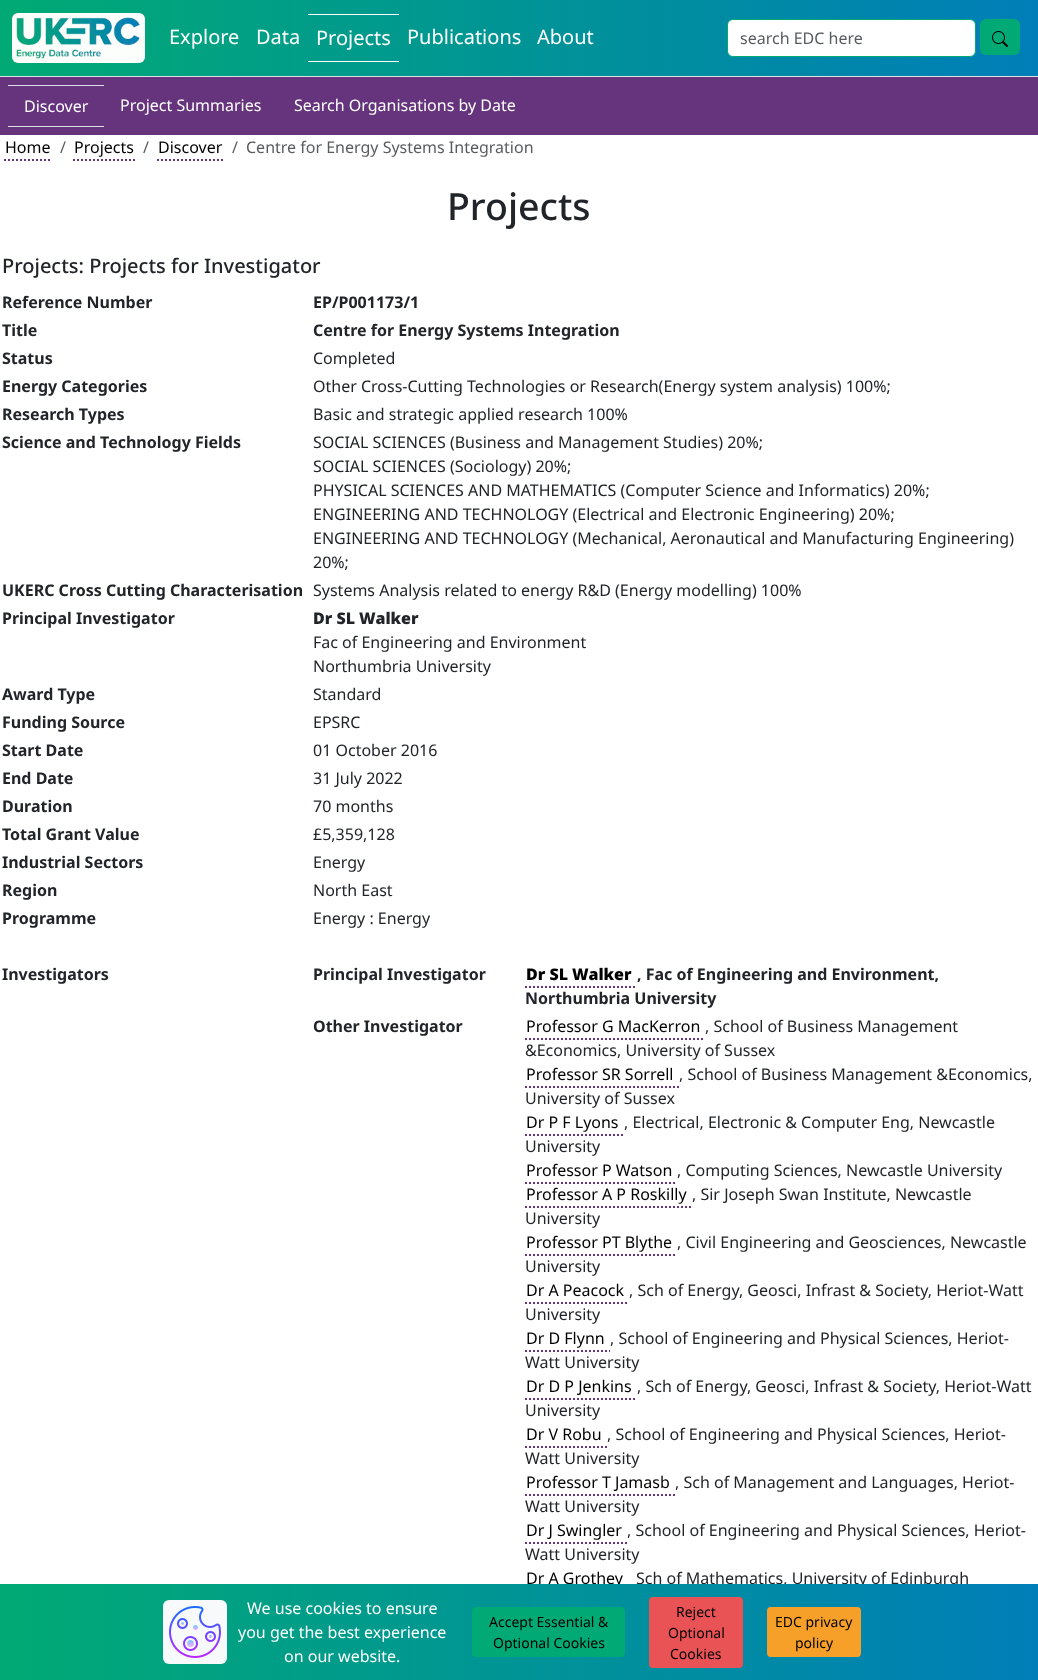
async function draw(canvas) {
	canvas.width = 1038;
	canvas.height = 1680;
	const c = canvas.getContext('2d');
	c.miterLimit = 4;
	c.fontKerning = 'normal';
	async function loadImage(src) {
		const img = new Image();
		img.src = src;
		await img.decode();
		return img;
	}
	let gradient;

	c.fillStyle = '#fff';
	c.fillRect(0, 0, 1038, 1680);
	gradient = c.createLinearGradient(0, 38, 1038, 38);
	gradient.addColorStop(0, '#01aa74');
	gradient.addColorStop(1, '#007eb8');
	c.fillStyle = gradient;
	c.fillRect(0, 0, 1038, 76);
	c.fillStyle = '#dee2e6';
	c.fillRect(0, 76, 1038, 1);
	c.drawImage(await loadImage('img1.png'), 12, 13, 133, 50);
	c.font = '20px Noto Sans';
	c.fillStyle = '#fff';
	c.fillText('Explore', 169, 44);
	c.fillText('Data', 256, 44);
	c.fillRect(308, 14, 91, 1);
	c.fillRect(308, 61, 91, 1);
	for (const [text, x, y] of [
		['Projects', 316, 45],
		['Publications', 407, 44],
		['About', 537, 44],
	]) {
		c.fillText(text, x, y);
	}
	c.beginPath();
	c.roundRect(727.5, 19.5, 248, 37, 5.5);
	c.fill();
	c.strokeStyle = '#01aa74';
	c.stroke();
	c.font = '16px Noto Sans';
	c.fillStyle = '#595c5f';
	c.fillText('search EDC here', 740, 44);
	c.fillStyle = '#01aa74';
	c.beginPath();
	c.roundRect(980, 19, 40, 36, 6);
	c.fill();
	c.drawImage(await loadImage('img2.png'), 992, 31, 16, 16);
	for (const [x, y, w, h, color] of [
		[0, 77, 1038, 58, '#66347c'],
		[8, 85, 96, 1, '#dee2e6'],
		[8, 126, 96, 1, '#dee2e6'],
	]) {
		c.fillStyle = color;
		c.fillRect(x, y, w, h);
	}
	c.fillStyle = '#fff';
	for (const [text, x, y] of [
		['Discover', 24, 112],
		['Project Summaries', 120, 111],
		['Search Organisations by Date', 294, 111],
	]) {
		c.fillText(text, x, y);
	}
	c.fillStyle = '#000';
	c.fillText('Home', 5, 153);
	c.beginPath();
	c.moveTo(4, 160);
	c.lineTo(52, 160);
	c.strokeStyle = '#66347c';
	c.lineWidth = 2;
	c.setLineDash([2, 2]);
	c.stroke();
	c.fillStyle = '#595c5f';
	c.fillText('/', 60, 153);
	c.fillStyle = '#000';
	c.fillText('Projects', 74, 153);
	c.beginPath();
	c.moveTo(73, 160);
	c.lineTo(135, 160);
	c.stroke();
	c.fillStyle = '#595c5f';
	c.fillText('/', 143, 153);
	c.fillStyle = '#000';
	c.fillText('Discover', 158, 153);
	c.beginPath();
	c.moveTo(157, 160);
	c.lineTo(224, 160);
	c.stroke();
	c.fillStyle = '#595c5f';
	c.fillText('/', 232, 153);
	c.fillText('Centre for Energy Systems Integration', 246, 153);
	c.font = '500 37.5px Noto Sans';
	c.fillStyle = '#212529';
	c.fillText('Projects', 447, 220);
	c.font = '500 20px Noto Sans';
	c.fillText('Projects: Projects for Investigator', 2, 273);
	c.font = 'bold 16px Noto Sans';
	for (const [text, x, y] of [
		['Reference Number', 2, 308],
		['EP/P001173/1', 313, 308],
		['Title', 2, 336],
		['Centre for Energy Systems Integration', 313, 336],
		['Status', 2, 364],
	]) {
		c.fillText(text, x, y);
	}
	c.font = '16px Noto Sans';
	c.fillText('Completed', 313, 364);
	c.font = 'bold 16px Noto Sans';
	c.fillText('Energy Categories', 2, 392);
	c.font = '16px Noto Sans';
	c.fillText('Other Cross-Cutting Technologies or Research(Energy system analysis) 100%;', 313, 392);
	c.font = 'bold 16px Noto Sans';
	c.fillText('Research Types', 2, 420);
	c.font = '16px Noto Sans';
	c.fillText('Basic and strategic applied research 100%', 313, 420);
	c.font = 'bold 16px Noto Sans';
	c.fillText('Science and Technology Fields', 2, 448);
	c.font = '16px Noto Sans';
	for (const [text, x, y] of [
		['SOCIAL SCIENCES (Business and Management Studies) 20%;', 313, 448],
		['SOCIAL SCIENCES (Sociology) 20%;', 313, 472],
		['PHYSICAL SCIENCES AND MATHEMATICS (Computer Science and Informatics) 20%;', 313, 496],
		['ENGINEERING AND TECHNOLOGY (Electrical and Electronic Engineering) 20%;', 313, 520],
		['ENGINEERING AND TECHNOLOGY (Mechanical, Aeronautical and Manufacturing Engineering)', 313, 544],
		['20%;', 313, 568],
	]) {
		c.fillText(text, x, y);
	}
	c.font = 'bold 16px Noto Sans';
	c.fillText('UKERC Cross Cutting Characterisation', 2, 596);
	c.font = '16px Noto Sans';
	c.fillText('Systems Analysis related to energy R&D (Energy modelling) 100%', 313, 596);
	c.font = 'bold 16px Noto Sans';
	c.fillText('Principal Investigator', 2, 624);
	c.font = '900 16px Noto Sans';
	c.fillText('Dr SL Walker', 313, 624);
	c.font = '16px Noto Sans';
	c.fillText('Fac of Engineering and Environment', 313, 648);
	c.fillText('Northumbria University', 313, 672);
	c.font = 'bold 16px Noto Sans';
	c.fillText('Award Type', 2, 700);
	c.font = '16px Noto Sans';
	c.fillText('Standard', 313, 700);
	c.font = 'bold 16px Noto Sans';
	c.fillText('Funding Source', 2, 728);
	c.font = '16px Noto Sans';
	c.fillText('EPSRC', 313, 728);
	c.font = 'bold 16px Noto Sans';
	c.fillText('Start Date', 2, 756);
	c.font = '16px Noto Sans';
	c.fillText('01 October 2016', 313, 756);
	c.font = 'bold 16px Noto Sans';
	c.fillText('End Date', 2, 784);
	c.font = '16px Noto Sans';
	c.fillText('31 July 2022', 313, 784);
	c.font = 'bold 16px Noto Sans';
	c.fillText('Duration', 2, 812);
	c.font = '16px Noto Sans';
	c.fillText('70 months', 313, 812);
	c.font = 'bold 16px Noto Sans';
	c.fillText('Total Grant Value', 2, 840);
	c.font = '16px Noto Sans';
	c.fillText('£5,359,128', 313, 840);
	c.font = 'bold 16px Noto Sans';
	c.fillText('Industrial Sectors', 2, 868);
	c.font = '16px Noto Sans';
	c.fillText('Energy', 313, 868);
	c.font = 'bold 16px Noto Sans';
	c.fillText('Region', 2, 896);
	c.font = '16px Noto Sans';
	c.fillText('North East', 313, 896);
	c.font = 'bold 16px Noto Sans';
	c.fillText('Programme', 2, 924);
	c.font = '16px Noto Sans';
	c.fillText('Energy : Energy', 313, 924);
	c.font = 'bold 16px Noto Sans';
	c.fillText('Investigators', 2, 980);
	c.fillText('Principal Investigator', 313, 980);
	c.font = '900 16px Noto Sans';
	c.fillStyle = '#000';
	c.fillText('Dr SL Walker', 526, 980);
	c.font = 'bold 16px Noto Sans';
	c.fillStyle = '#212529';
	c.fillText(', Fac of Engineering and Environment,', 637, 980);
	c.beginPath();
	c.moveTo(525, 987);
	c.lineTo(637, 987);
	c.stroke();
	c.fillText('Northumbria University', 525, 1004);
	c.fillText('Other Investigator', 313, 1032);
	c.font = '16px Noto Sans';
	c.fillStyle = '#000';
	c.fillText('Professor G MacKerron', 526, 1032);
	c.beginPath();
	c.moveTo(525, 1039);
	c.lineTo(705, 1039);
	c.stroke();
	c.fillStyle = '#212529';
	c.fillText(', School of Business Management', 705, 1032);
	c.fillText('&Economics, University of Sussex', 525, 1056);
	c.fillStyle = '#000';
	c.fillText('Professor SR Sorrell', 526, 1080);
	c.beginPath();
	c.moveTo(525, 1087);
	c.lineTo(679, 1087);
	c.stroke();
	c.fillStyle = '#212529';
	c.fillText(', School of Business Management &Economics,', 679, 1080);
	c.fillText('University of Sussex', 525, 1104);
	c.fillStyle = '#000';
	c.fillText('Dr P F Lyons', 526, 1128);
	c.beginPath();
	c.moveTo(525, 1135);
	c.lineTo(624, 1135);
	c.stroke();
	c.fillStyle = '#212529';
	c.fillText(', Electrical, Electronic & Computer Eng, Newcastle', 624, 1128);
	c.fillText('University', 525, 1152);
	c.fillStyle = '#000';
	c.fillText('Professor P Watson', 526, 1176);
	c.beginPath();
	c.moveTo(525, 1183);
	c.lineTo(677, 1183);
	c.stroke();
	c.fillStyle = '#212529';
	c.fillText(', Computing Sciences, Newcastle University', 677, 1176);
	c.fillStyle = '#000';
	c.fillText('Professor A P Roskilly', 526, 1200);
	c.beginPath();
	c.moveTo(525, 1207);
	c.lineTo(692, 1207);
	c.stroke();
	c.fillStyle = '#212529';
	c.fillText(', Sir Joseph Swan Institute, Newcastle', 692, 1200);
	c.fillText('University', 525, 1224);
	c.fillStyle = '#000';
	c.fillText('Professor PT Blythe', 526, 1248);
	c.beginPath();
	c.moveTo(525, 1255);
	c.lineTo(677, 1255);
	c.stroke();
	c.fillStyle = '#212529';
	c.fillText(', Civil Engineering and Geosciences, Newcastle', 677, 1248);
	c.fillText('University', 525, 1272);
	c.fillStyle = '#000';
	c.fillText('Dr A Peacock', 526, 1296);
	c.beginPath();
	c.moveTo(525, 1303);
	c.lineTo(629, 1303);
	c.stroke();
	c.fillStyle = '#212529';
	c.fillText(', Sch of Energy, Geosci, Infrast & Society, Heriot-Watt', 629, 1296);
	c.fillText('University', 525, 1320);
	c.fillStyle = '#000';
	c.fillText('Dr D Flynn', 526, 1344);
	c.beginPath();
	c.moveTo(525, 1351);
	c.lineTo(610, 1351);
	c.stroke();
	c.fillStyle = '#212529';
	c.fillText(', School of Engineering and Physical Sciences, Heriot-', 610, 1344);
	c.fillText('Watt University', 525, 1368);
	c.fillStyle = '#000';
	c.fillText('Dr D P Jenkins', 526, 1392);
	c.beginPath();
	c.moveTo(525, 1399);
	c.lineTo(637, 1399);
	c.stroke();
	c.fillStyle = '#212529';
	c.fillText(', Sch of Energy, Geosci, Infrast & Society, Heriot-Watt', 637, 1392);
	c.fillText('University', 525, 1416);
	c.fillStyle = '#000';
	c.fillText('Dr V Robu', 526, 1440);
	c.beginPath();
	c.moveTo(525, 1447);
	c.lineTo(607, 1447);
	c.stroke();
	c.fillStyle = '#212529';
	c.fillText(', School of Engineering and Physical Sciences, Heriot-', 607, 1440);
	c.fillText('Watt University', 525, 1464);
	c.fillStyle = '#000';
	c.fillText('Professor T Jamasb', 526, 1488);
	c.beginPath();
	c.moveTo(525, 1495);
	c.lineTo(675, 1495);
	c.stroke();
	c.fillStyle = '#212529';
	c.fillText(', Sch of Management and Languages, Heriot-', 675, 1488);
	c.fillText('Watt University', 525, 1512);
	c.fillStyle = '#000';
	c.fillText('Dr J Swingler', 526, 1536);
	c.beginPath();
	c.moveTo(525, 1543);
	c.lineTo(627, 1543);
	c.stroke();
	c.fillStyle = '#212529';
	c.fillText(', School of Engineering and Physical Sciences, Heriot-', 627, 1536);
	c.fillText('Watt University', 525, 1560);
	c.fillStyle = '#000';
	c.fillText('Dr A Grothey', 526, 1584);
	c.fillStyle = '#212529';
	c.fillText('Sch of Mathematics, University of Edinburgh', 636, 1584);
	gradient = c.createLinearGradient(0, 1632, 1038, 1632);
	gradient.addColorStop(0, '#01aa74');
	gradient.addColorStop(1, '#007eb8');
	c.fillStyle = gradient;
	c.fillRect(0, 1584, 1038, 96);
	c.fillStyle = '#f8f9fa';
	c.beginPath();
	c.roundRect(163, 1600, 64, 64, 6);
	c.fill();
	c.drawImage(await loadImage('img3.png'), 169, 1606, 52, 52);
	c.fillStyle = '#fff';
	for (const [text, x, y] of [
		['We use cookies to ensure', 247, 1614],
		['you get the best experience', 238, 1638],
		['on our website.', 284, 1662],
	]) {
		c.fillText(text, x, y);
	}
	c.fillStyle = '#01aa74';
	c.beginPath();
	c.roundRect(472, 1607, 153, 50, 4);
	c.fill();
	c.font = '14px Noto Sans';
	c.fillStyle = '#000';
	c.fillText('Accept Essential &', 489, 1627);
	c.fillText('Optional Cookies', 493, 1648);
	c.fillStyle = '#ea5355';
	c.beginPath();
	c.roundRect(649, 1597, 94, 71, 4);
	c.fill();
	c.fillStyle = '#000';
	for (const [text, x, y] of [
		['Reject', 676, 1617],
		['Optional', 668, 1638],
		['Cookies', 670, 1659],
	]) {
		c.fillText(text, x, y);
	}
	c.fillStyle = '#f6a02a';
	c.beginPath();
	c.roundRect(767, 1607, 94, 50, 4);
	c.fill();
	c.fillStyle = '#000';
	c.fillText('EDC privacy', 775, 1627);
	c.fillText('policy', 795, 1648);
}

draw(document.querySelector('canvas'));
